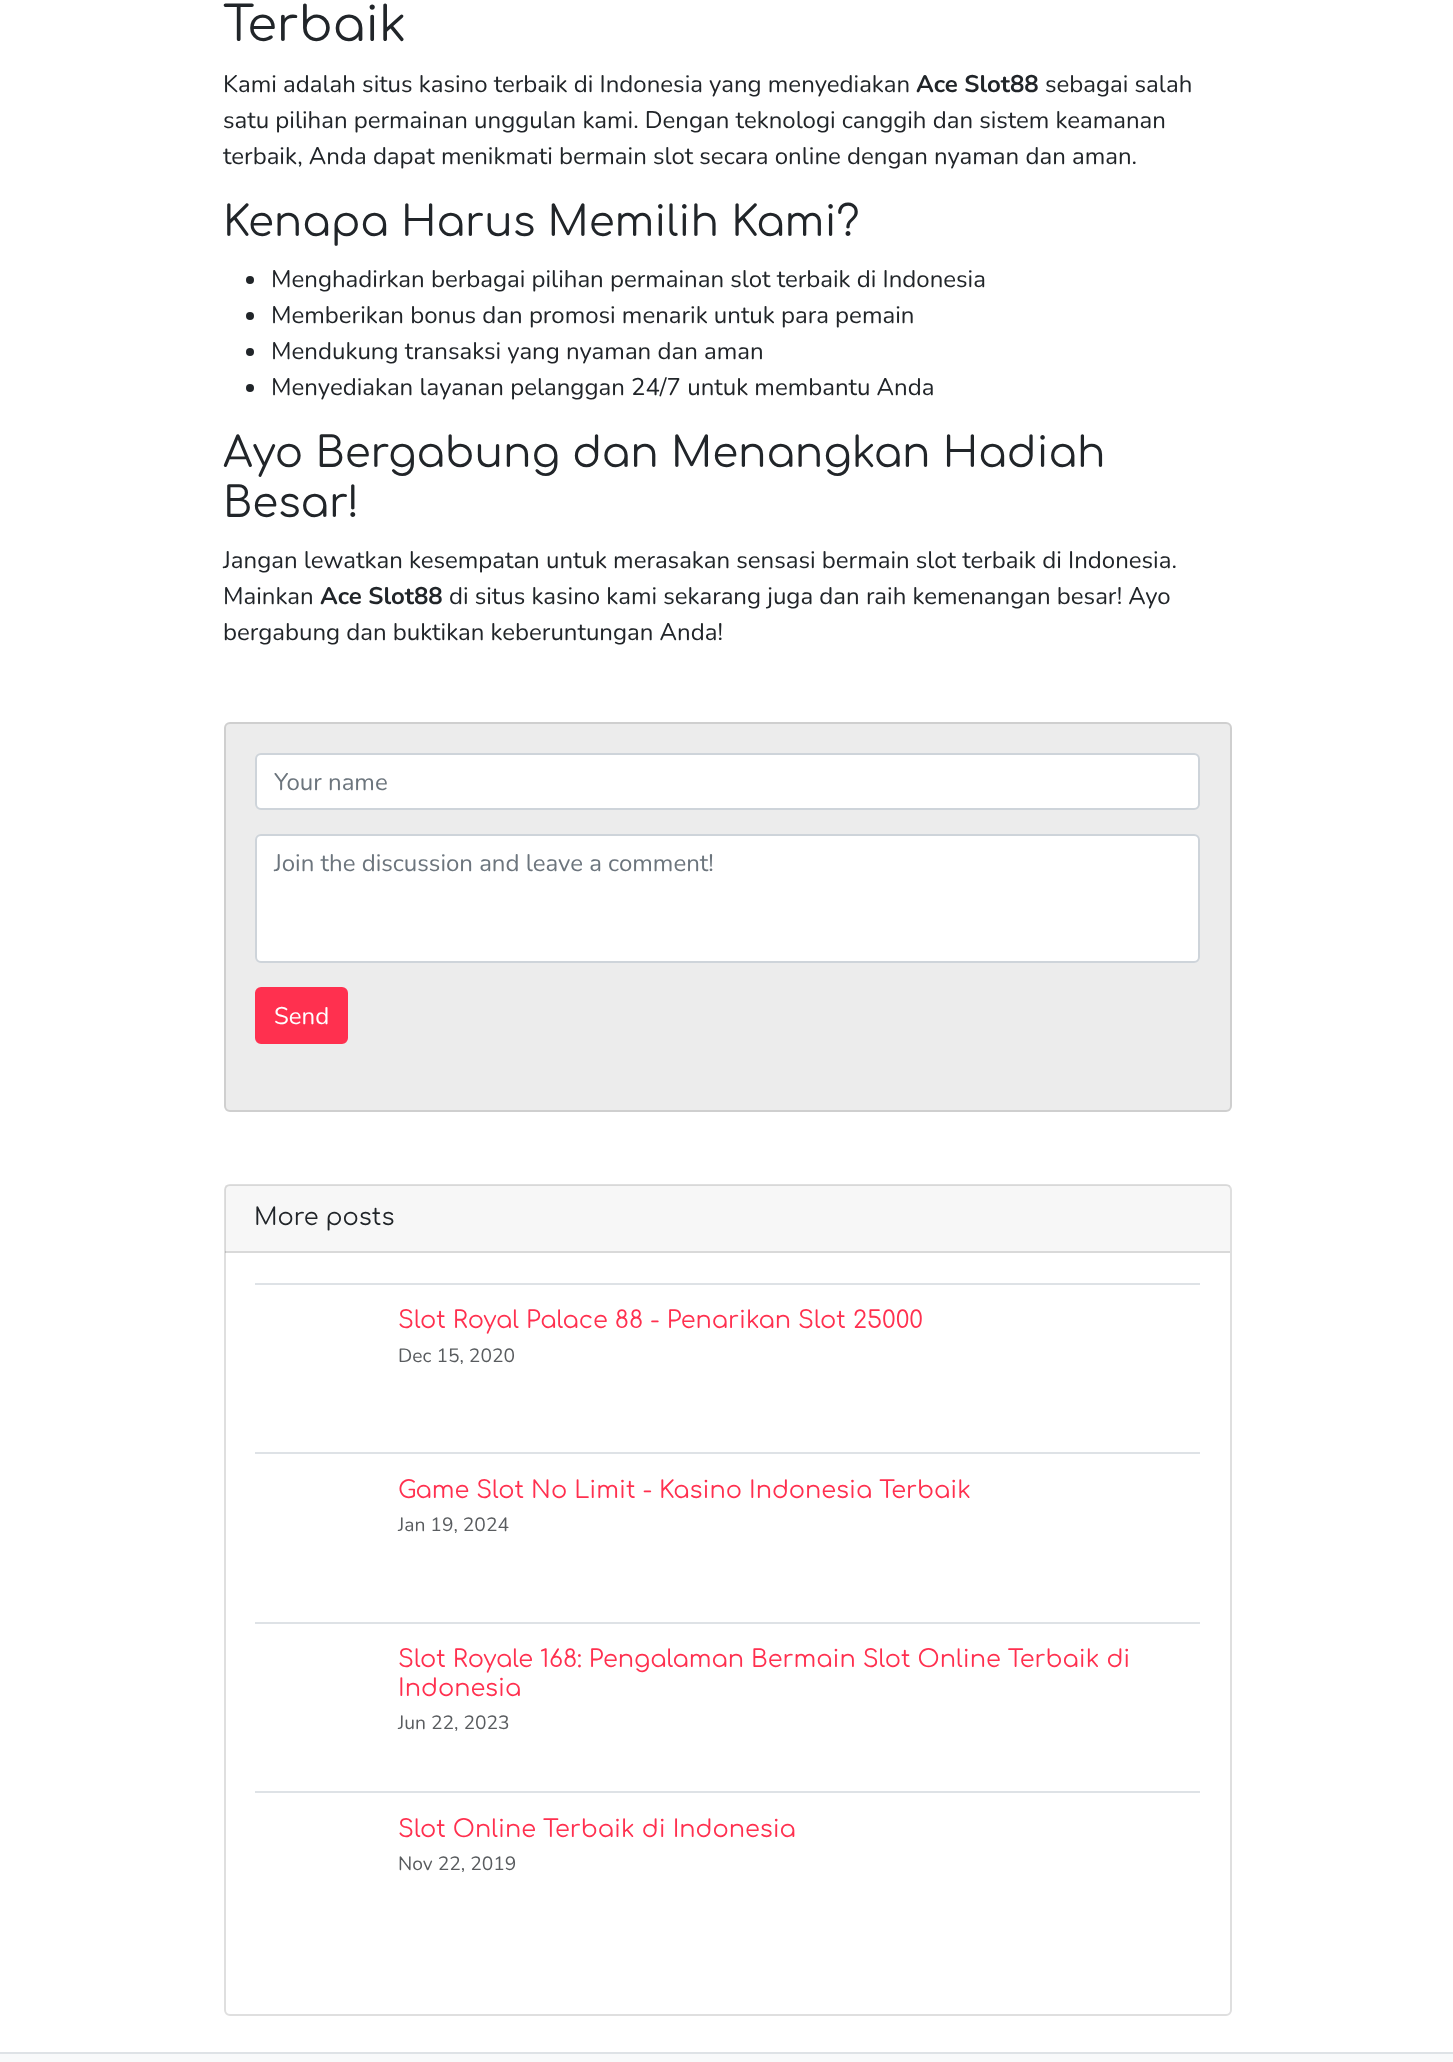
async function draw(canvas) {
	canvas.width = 1453;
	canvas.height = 2062;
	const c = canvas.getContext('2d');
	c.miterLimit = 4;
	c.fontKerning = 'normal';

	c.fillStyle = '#fff';
	c.fillRect(0, 0, 1453, 2062);
	c.font = '48px Comfortaa';
	c.fillStyle = '#212529';
	c.fillText('Terbaik', 223, 41);
	c.font = '24px Nunito';
	c.fillText('Kami adalah situs kasino terbaik di Indonesia yang menyediakan', 223, 92);
	c.font = 'bold 24px Nunito';
	c.fillText('Ace Slot88', 916, 92);
	c.font = '24px Nunito';
	for (const [text, x, y] of [
		['sebagai salah', 1045, 92],
		['satu pilihan permainan unggulan kami. Dengan teknologi canggih dan sistem keamanan', 223, 128],
		['terbaik, Anda dapat menikmati bermain slot secara online dengan nyaman dan aman.', 223, 164],
	]) {
		c.fillText(text, x, y);
	}
	c.font = '42px Comfortaa';
	c.fillText('Kenapa Harus Memilih Kami?', 223, 236);
	c.beginPath();
	c.arc(250, 280, 4, 0, 2 * Math.PI);
	c.fill();
	c.font = '24px Nunito';
	c.fillText('Menghadirkan berbagai pilihan permainan slot terbaik di Indonesia', 271, 287);
	c.beginPath();
	c.arc(250, 316, 4, 0, 2 * Math.PI);
	c.fill();
	c.fillText('Memberikan bonus dan promosi menarik untuk para pemain', 271, 323);
	c.beginPath();
	c.arc(250, 352, 4, 0, 2 * Math.PI);
	c.fill();
	c.fillText('Mendukung transaksi yang nyaman dan aman', 271, 359);
	c.beginPath();
	c.arc(250, 388, 4, 0, 2 * Math.PI);
	c.fill();
	c.fillText('Menyediakan layanan pelanggan 24/7 untuk membantu Anda', 271, 395);
	c.font = '42px Comfortaa';
	c.fillText('Ayo Bergabung dan Menangkan Hadiah', 223, 467);
	c.fillText('Besar!', 223, 517);
	c.font = '24px Nunito';
	c.fillText('Jangan lewatkan kesempatan untuk merasakan sensasi bermain slot terbaik di Indonesia.', 223, 568);
	c.fillText('Mainkan', 223, 604);
	c.font = 'bold 24px Nunito';
	c.fillText('Ace Slot88', 320, 604);
	c.font = '24px Nunito';
	c.fillText('di situs kasino kami sekarang juga dan raih kemenangan besar! Ayo', 449, 604);
	c.fillText('bergabung dan buktikan keberuntungan Anda!', 223, 640);
	c.fillStyle = '#ececec';
	c.beginPath();
	c.roundRect(224, 722, 1008, 390, 6);
	c.fill();
	c.beginPath();
	c.roundRect(225, 723, 1006, 388, 5);
	c.strokeStyle = '#0000001f';
	c.lineWidth = 2;
	c.stroke();
	c.fillStyle = '#fff';
	c.beginPath();
	c.roundRect(256, 754, 943, 55, 5);
	c.fill();
	c.strokeStyle = '#ced4da';
	c.stroke();
	c.fillStyle = '#6c757d';
	c.fillText('Your name', 274, 790);
	c.fillStyle = '#fff';
	c.beginPath();
	c.roundRect(256, 835, 943, 127, 5);
	c.fill();
	c.stroke();
	c.fillStyle = '#6c757d';
	c.fillText('Join the discussion and leave a comment!', 274, 871);
	c.fillStyle = '#ff304f';
	c.beginPath();
	c.roundRect(256, 988, 91, 55, 5);
	c.fill();
	c.strokeStyle = '#ff304f';
	c.stroke();
	c.fillStyle = '#fff';
	c.fillText('Send', 274, 1024);
	c.beginPath();
	c.roundRect(225, 1185, 1006, 830, 5);
	c.strokeStyle = '#dfdfdf';
	c.stroke();
	c.fillStyle = '#00000008';
	c.fillRect(225, 1185, 1005, 68);
	c.fillStyle = '#0000001f';
	c.fillRect(225, 1251, 1005, 2);
	c.font = '24px Comfortaa';
	c.fillStyle = '#212529';
	c.fillText('More posts', 254, 1225);
	c.fillStyle = '#dee2e6';
	c.fillRect(255, 1283, 945, 2);
	c.fillStyle = '#ff304f';
	c.fillText('Slot Royal Palace 88 - Penarikan Slot 25000', 398, 1328);
	c.font = '19.25px Nunito';
	c.fillStyle = '#595c5f';
	c.fillText('Dec 15, 2020', 398, 1362);
	c.fillStyle = '#dee2e6';
	c.fillRect(255, 1452, 945, 2);
	c.font = '24px Comfortaa';
	c.fillStyle = '#ff304f';
	c.fillText('Game Slot No Limit - Kasino Indonesia Terbaik', 398, 1498);
	c.font = '19.25px Nunito';
	c.fillStyle = '#595c5f';
	c.fillText('Jan 19, 2024', 398, 1531);
	c.fillStyle = '#dee2e6';
	c.fillRect(255, 1622, 945, 2);
	c.font = '24px Comfortaa';
	c.fillStyle = '#ff304f';
	c.fillText('Slot Royale 168: Pengalaman Bermain Slot Online Terbaik di', 398, 1667);
	c.fillText('Indonesia', 398, 1696);
	c.font = '19.25px Nunito';
	c.fillStyle = '#595c5f';
	c.fillText('Jun 22, 2023', 398, 1729);
	c.fillStyle = '#dee2e6';
	c.fillRect(255, 1791, 945, 2);
	c.font = '24px Comfortaa';
	c.fillStyle = '#ff304f';
	c.fillText('Slot Online Terbaik di Indonesia', 398, 1837);
	c.font = '19.25px Nunito';
	c.fillStyle = '#595c5f';
	c.fillText('Nov 22, 2019', 398, 1870);
	c.fillStyle = '#f8f9fa';
	c.fillRect(0, 2054, 1453, 8);
	c.fillStyle = '#dee2e6';
	c.fillRect(0, 2052, 1453, 2);
}

draw(document.querySelector('canvas'));
